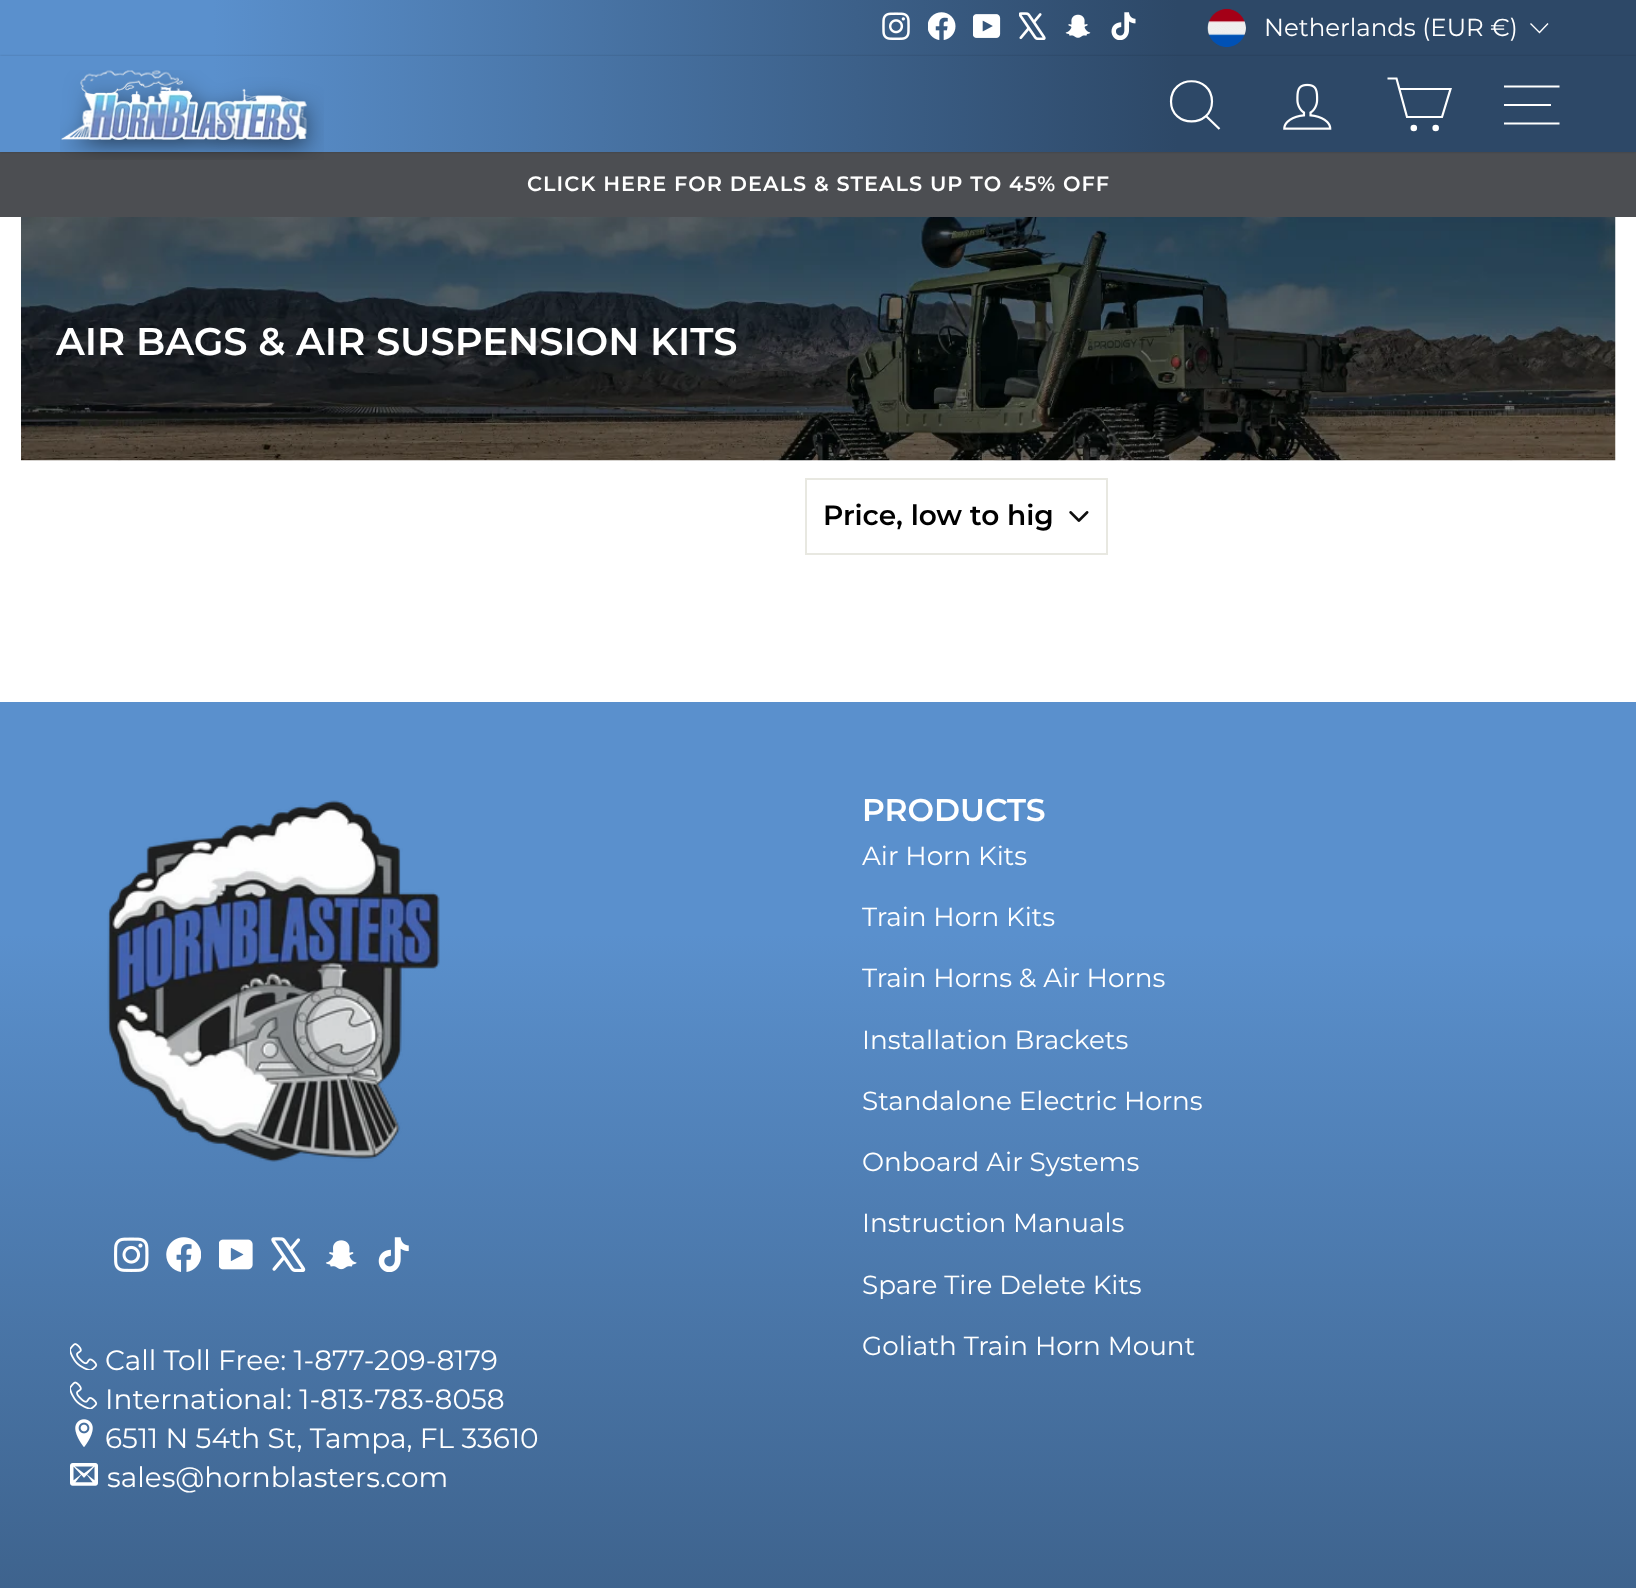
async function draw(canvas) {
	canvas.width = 1636;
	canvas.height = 1588;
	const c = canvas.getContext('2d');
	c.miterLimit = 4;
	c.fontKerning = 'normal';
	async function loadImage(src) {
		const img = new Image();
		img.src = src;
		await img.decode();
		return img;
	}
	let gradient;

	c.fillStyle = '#fff';
	c.fillRect(0, 0, 1636, 1588);
	gradient = c.createLinearGradient(0, 28, 1636, 28);
	gradient.addColorStop(0.13, '#5a90cd');
	gradient.addColorStop(0.72, '#2d4867');
	c.fillStyle = gradient;
	c.fillRect(0, 0, 1636, 56);
	c.drawImage(await loadImage('img1.png'), 882, 12, 28, 28);
	c.drawImage(await loadImage('img2.png'), 928, 12, 28, 28);
	c.drawImage(await loadImage('img3.png'), 973, 14, 28, 24);
	c.drawImage(await loadImage('img4.png'), 1019, 12, 27, 28);
	c.drawImage(await loadImage('img5.png'), 1065, 14, 26, 24);
	c.drawImage(await loadImage('img6.png'), 1111, 12, 25, 28);
	c.drawImage(await loadImage('img7.png'), 1207, 8, 39, 40);
	c.font = '24.5px Montserrat';
	c.fillStyle = '#fff';
	c.fillText('Netherlands (EUR €)', 1264, 36);
	c.beginPath();
	c.moveTo(1530.5, 23.5);
	c.lineTo(1539.5, 32.5);
	c.lineTo(1548, 23.5);
	c.strokeStyle = '#fff';
	c.lineWidth = 1.4;
	c.stroke();
	gradient = c.createLinearGradient(0, 104, 1636, 104);
	gradient.addColorStop(0.13, '#5a90cd');
	gradient.addColorStop(0.72, '#2d4867');
	c.fillStyle = gradient;
	c.fillRect(0, 56, 1636, 96);
	c.fillStyle = '#4c4e52';
	c.fillRect(0, 152, 1636, 65);
	c.save();
	c.beginPath();
	c.moveTo(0, 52);
	c.lineTo(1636, 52);
	c.lineTo(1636, 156);
	c.lineTo(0, 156);
	c.closePath();
	c.moveTo(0, 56);
	c.lineTo(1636, 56);
	c.lineTo(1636, 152);
	c.lineTo(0, 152);
	c.closePath();
	c.clip('evenodd');
	c.fillStyle = '#00000033';
	c.filter = 'blur(1px)';
	c.beginPath();
	c.rect(0, 56, 1636, 96);
	c.fill();
	c.filter = 'none';
	c.restore();
	c.drawImage(await loadImage('img8.png'), 60, 70, 264, 90);
	c.beginPath();
	c.moveTo(1212, 101.5);
	c.bezierCurveTo(1212, 128, 1171, 128, 1171, 101.5);
	c.bezierCurveTo(1171, 74.5, 1212, 74.5, 1212, 101.5);
	c.closePath();
	c.moveTo(1219.5, 129);
	c.lineTo(1206, 116);
	c.lineWidth = 2.2;
	c.stroke();
	c.drawImage(await loadImage('img9.png'), 1283, 83, 49, 47);
	c.beginPath();
	c.moveTo(1399.5, 89);
	c.lineTo(1450.5, 89);
	c.lineTo(1442, 117);
	c.lineTo(1407, 117);
	c.lineTo(1396.5, 78.5);
	c.lineTo(1387.5, 78.5);
	c.stroke();
	c.fillStyle = '#fff';
	c.beginPath();
	c.arc(1413.8, 128, 2.2, 0, 2 * Math.PI);
	c.fill();
	c.stroke();
	c.beginPath();
	c.arc(1435.7, 128, 2.2, 0, 2 * Math.PI);
	c.fill();
	c.stroke();
	c.beginPath();
	c.moveTo(1504, 86.5);
	c.lineTo(1559.5, 86.5);
	c.moveTo(1504, 105);
	c.lineTo(1551, 105);
	c.moveTo(1504, 123.5);
	c.lineTo(1559.5, 123.5);
	c.stroke();
	c.letterSpacing = '1.05px';
	c.font = '600 20.8px Montserrat';
	c.fillText('CLICK HERE FOR DEALS & STEALS UP TO 45% OFF', 527, 191);
	c.drawImage(await loadImage('img10.png'), 21, 217, 1595, 244);
	c.letterSpacing = '0px';
	c.font = '600 38.5px Montserrat';
	c.fillText('AIR BAGS & AIR SUSPENSION KITS', 56, 355);
	c.drawImage(await loadImage('img11.png'), 1069, 511, 20, 11);
	c.strokeStyle = '#e8e8e1';
	c.lineWidth = 2;
	c.strokeRect(806, 479, 301, 75);
	c.font = '600 28px Montserrat';
	c.fillStyle = '#000';
	c.fillText('Price, low to hig', 823, 525);
	gradient = c.createLinearGradient(818, 702, 818, 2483);
	gradient.addColorStop(0.13, '#5a90cd');
	gradient.addColorStop(0.72, '#2d4867');
	c.fillStyle = gradient;
	c.fillRect(0, 702, 1636, 886);
	c.font = '600 31.5px Montserrat';
	c.fillStyle = '#fff';
	c.fillText('PRODUCTS', 862, 821);
	c.font = '26.25px Montserrat';
	for (const [text, x, y] of [
		['Air Horn Kits', 862, 865],
		['Train Horn Kits', 862, 926],
		['Train Horns & Air Horns', 862, 987],
		['Installation Brackets', 862, 1049],
		['Standalone Electric Horns', 862, 1110],
		['Onboard Air Systems', 862, 1171],
		['Instruction Manuals', 862, 1232],
		['Spare Tire Delete Kits', 862, 1294],
		['Goliath Train Horn Mount', 862, 1355],
	]) {
		c.fillText(text, x, y);
	}
	c.drawImage(await loadImage('img12.png'), 107, 800, 333, 362);
	c.drawImage(await loadImage('img13.png'), 114, 1237, 35, 35);
	c.drawImage(await loadImage('img14.png'), 166, 1237, 35, 35);
	c.drawImage(await loadImage('img15.png'), 219, 1239, 34, 31);
	c.drawImage(await loadImage('img16.png'), 271, 1237, 35, 35);
	c.drawImage(await loadImage('img17.png'), 325, 1240, 32, 30);
	c.drawImage(await loadImage('img18.png'), 378, 1237, 31, 35);
	c.drawImage(await loadImage('img19.png'), 70, 1343, 28, 27);
	c.font = '28px Montserrat';
	c.fillText('Call Toll Free: 1-877-209-8179', 105, 1370);
	c.drawImage(await loadImage('img20.png'), 70, 1381, 28, 28);
	c.fillText('International: 1-813-783-8058', 105, 1409);
	c.drawImage(await loadImage('img21.png'), 75, 1419, 18, 28);
	c.fillText('6511 N 54th St, Tampa, FL 33610', 105, 1448);
	c.drawImage(await loadImage('img22.png'), 70, 1463, 28, 23);
	c.fillText('sales@hornblasters.com', 107, 1487);
}

draw(document.querySelector('canvas'));
